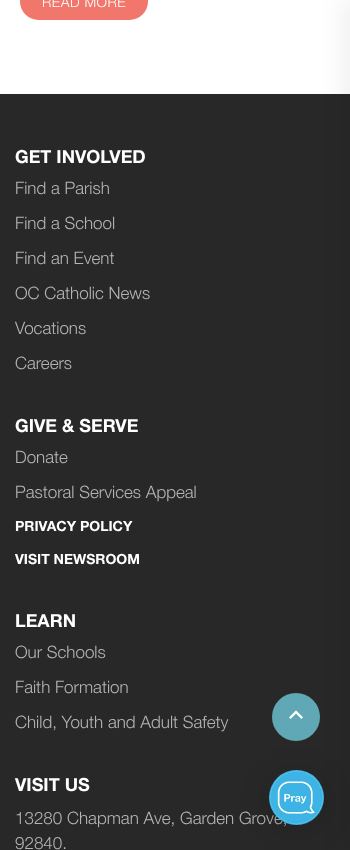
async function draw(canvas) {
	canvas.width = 350;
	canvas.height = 850;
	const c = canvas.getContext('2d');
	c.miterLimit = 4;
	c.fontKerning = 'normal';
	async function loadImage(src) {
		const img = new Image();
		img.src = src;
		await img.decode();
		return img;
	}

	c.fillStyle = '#fff';
	c.fillRect(0, 0, 350, 850);
	c.fillStyle = '#f1766b';
	c.beginPath();
	c.roundRect(20, -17, 128, 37, 18.5);
	c.fill();
	c.letterSpacing = '0.5px';
	c.font = '300 14px Helvetica Neue';
	c.fillStyle = '#fff';
	c.fillText('READ MORE', 42, 7);
	c.fillStyle = '#282828';
	c.fillRect(0, 94, 350, 756);
	c.letterSpacing = '0px';
	c.font = 'bold 18px Helvetica Neue';
	c.fillStyle = '#fff';
	c.fillText('GET INVOLVED', 15, 163);
	c.font = '300 17px Helvetica Neue';
	c.fillStyle = '#b4b4b4';
	for (const [text, x, y] of [
		['Find a Parish', 15, 194],
		['Find a School', 15, 229],
		['Find an Event', 15, 264],
		['OC Catholic News', 15, 299],
		['Vocations', 15, 334],
		['Careers', 15, 369],
	]) {
		c.fillText(text, x, y);
	}
	c.font = 'bold 18px Helvetica Neue';
	c.fillStyle = '#fff';
	c.fillText('GIVE & SERVE', 15, 432);
	c.font = '300 17px Helvetica Neue';
	c.fillStyle = '#b4b4b4';
	c.fillText('Donate', 15, 463);
	c.fillText('Pastoral Services Appeal', 15, 498);
	c.font = 'bold 14px Helvetica Neue';
	c.fillStyle = '#fff';
	c.fillText('PRIVACY POLICY', 15, 531);
	c.fillText('VISIT NEWSROOM', 15, 564);
	c.font = 'bold 18px Helvetica Neue';
	c.fillText('LEARN', 15, 627);
	c.font = '300 17px Helvetica Neue';
	c.fillStyle = '#b4b4b4';
	for (const [text, x, y] of [
		['Our Schools', 15, 658],
		['Faith Formation', 15, 693],
		['Child, Youth and Adult Safety', 15, 728],
	]) {
		c.fillText(text, x, y);
	}
	c.font = 'bold 18px Helvetica Neue';
	c.fillStyle = '#fff';
	c.fillText('VISIT US', 15, 791);
	c.font = '300 17px Helvetica Neue';
	c.fillStyle = '#b4b4b4';
	c.fillText('13280 Chapman Ave, Garden Grove,', 15, 824);
	c.fillText('92840.', 15, 849);
	c.fillStyle = '#60a8b5';
	c.beginPath();
	c.arc(296, 717, 24, 0, 2 * Math.PI);
	c.fill();
	c.drawImage(await loadImage('img1.png'), 289, 710, 14, 9);
	c.fillStyle = '#00000029';
	c.filter = 'blur(15px)';
	c.beginPath();
	c.roundRect(269, 775, 55, 55, 27.5);
	c.fill();
	c.filter = 'none';
	c.fillStyle = '#0000000d';
	c.filter = 'blur(10px)';
	c.beginPath();
	c.rect(340, 0, 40, 850);
	c.fill();
	c.filter = 'none';
	c.fillStyle = '#3db5e5';
	c.beginPath();
	c.arc(296.5, 797.5, 27.5, 0, 2 * Math.PI);
	c.fill();
	c.drawImage(await loadImage('img2.png'), 270, 771, 53, 53);
}

draw(document.querySelector('canvas'));
